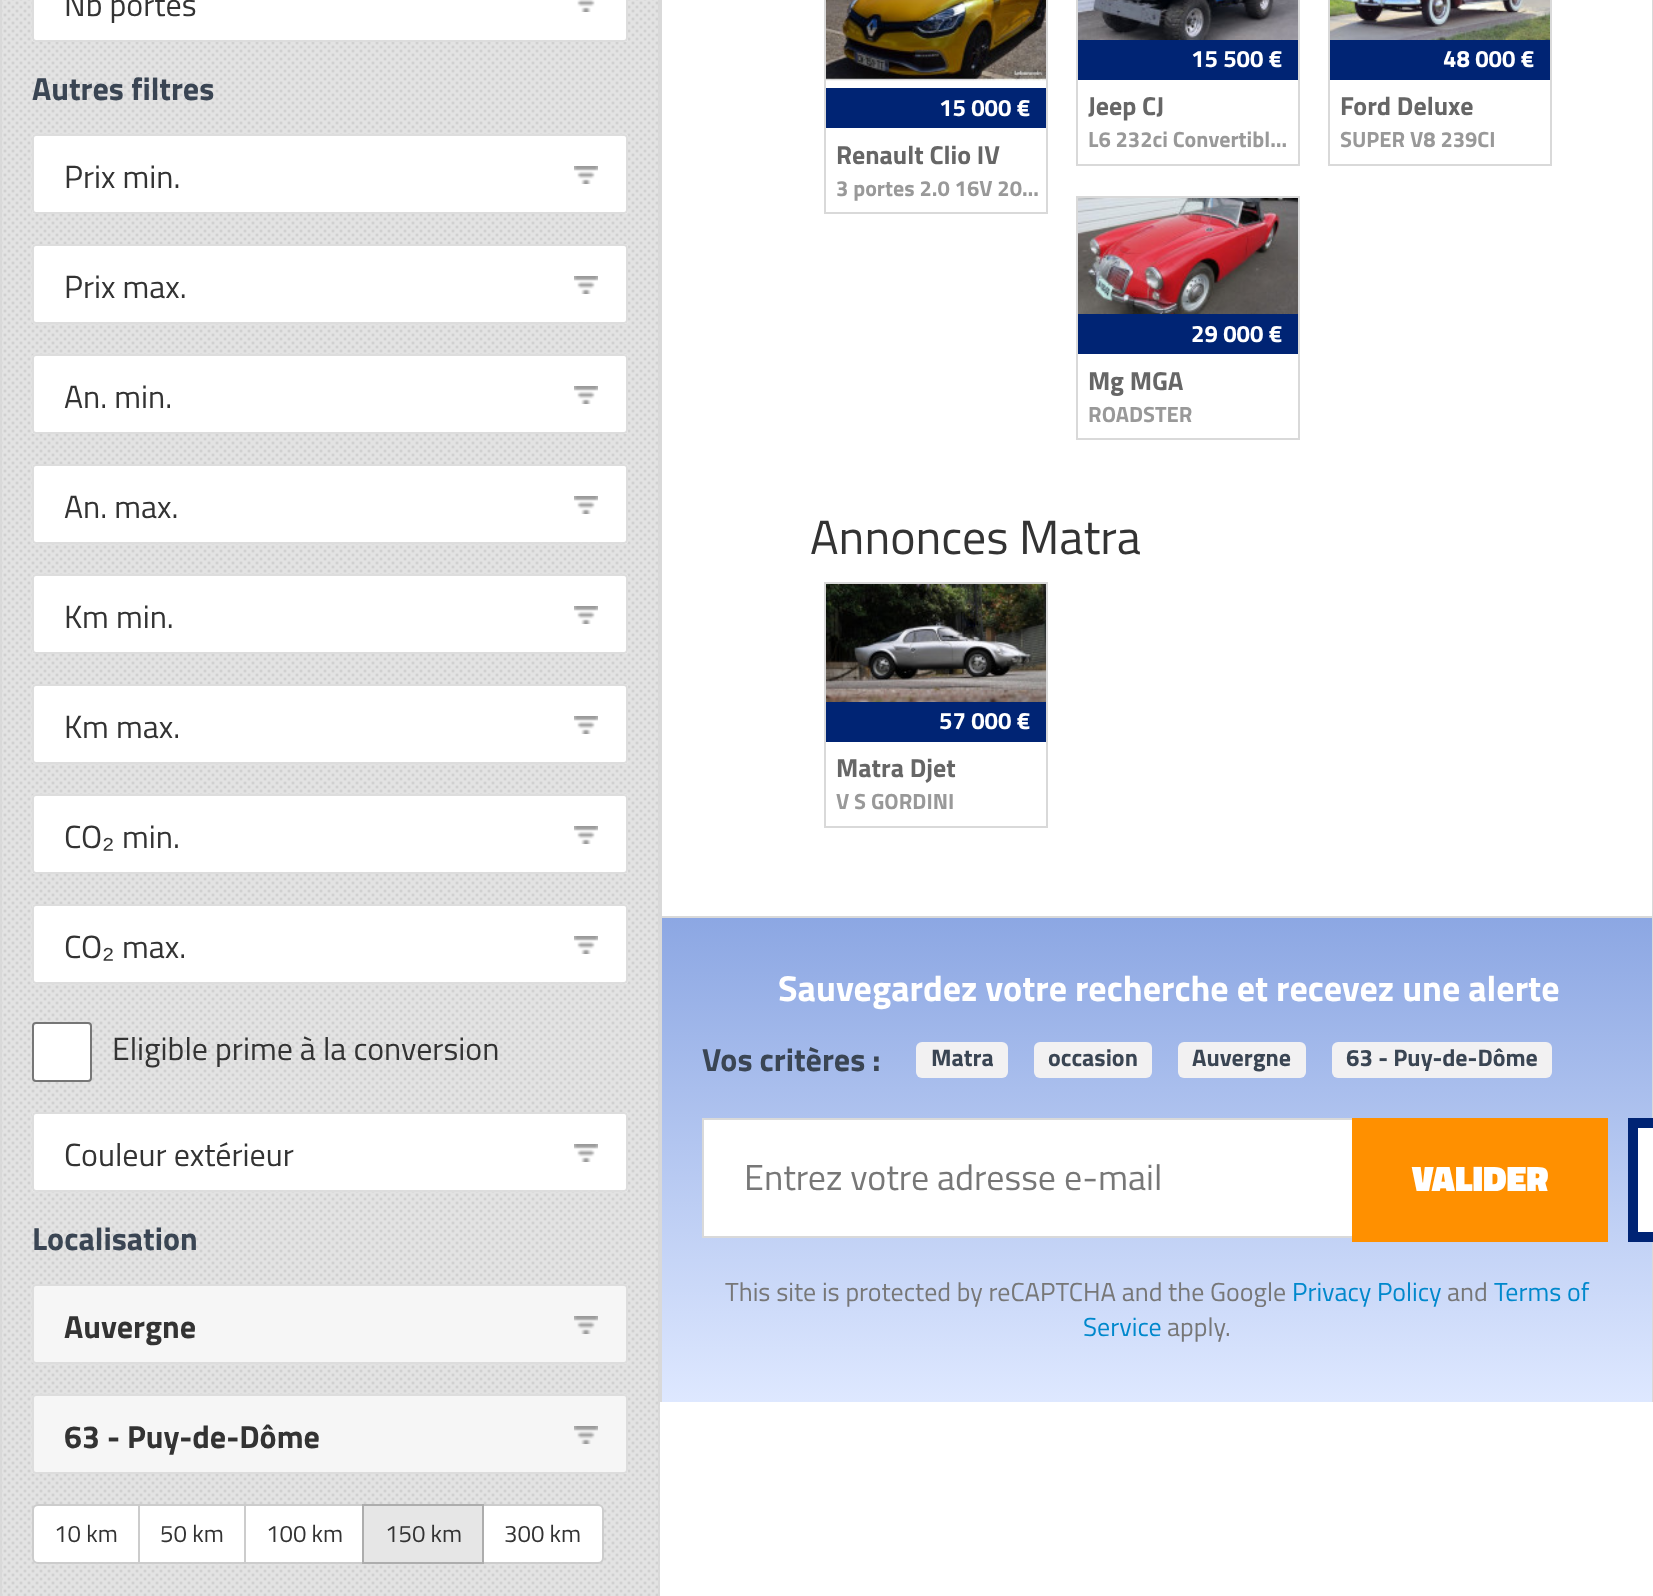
async function draw(canvas) {
	canvas.width = 1653;
	canvas.height = 1596;
	const c = canvas.getContext('2d');
	c.miterLimit = 4;
	c.fontKerning = 'normal';
	async function loadImage(src) {
		const img = new Image();
		img.src = src;
		await img.decode();
		return img;
	}
	let gradient;

	c.fillStyle = '#fff';
	c.fillRect(0, 0, 1653, 1596);
	c.fillStyle = '#e3e3e3';
	c.fillRect(2, 0, 656, 1596);
	c.drawImage(await loadImage('img1.png'), 2, 0, 656, 1596);
	c.strokeStyle = '#d9d9d9';
	c.lineWidth = 2;
	c.strokeRect(1, -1, 658, 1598);
	c.fillStyle = '#fff';
	c.beginPath();
	c.roundRect(32, -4, 596, 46, 4);
	c.fill();
	c.drawImage(await loadImage('img2.png'), 577, 0, 18, 12);
	c.beginPath();
	c.roundRect(33, -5, 594, 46, 3);
	c.strokeStyle = '#ddd';
	c.stroke();
	c.font = '32px Titillium Web';
	c.fillStyle = '#333';
	c.fillText('Nb portes', 64, 16);
	c.font = 'bold 32px Titillium Web';
	c.fillStyle = '#3a4553';
	c.fillText('Autres filtres', 32, 100);
	c.fillStyle = '#fff';
	c.beginPath();
	c.roundRect(32, 134, 596, 80, 4);
	c.fill();
	c.drawImage(await loadImage('img3.png'), 574, 166, 24, 18);
	c.beginPath();
	c.roundRect(33, 135, 594, 78, 3);
	c.stroke();
	c.font = '32px Titillium Web';
	c.fillStyle = '#333';
	c.fillText('Prix min.', 64, 188);
	c.fillStyle = '#fff';
	c.beginPath();
	c.roundRect(32, 244, 596, 80, 4);
	c.fill();
	c.drawImage(await loadImage('img3.png'), 574, 276, 24, 18);
	c.beginPath();
	c.roundRect(33, 245, 594, 78, 3);
	c.stroke();
	c.fillStyle = '#333';
	c.fillText('Prix max.', 64, 298);
	c.fillStyle = '#fff';
	c.beginPath();
	c.roundRect(32, 354, 596, 80, 4);
	c.fill();
	c.drawImage(await loadImage('img3.png'), 574, 386, 24, 18);
	c.beginPath();
	c.roundRect(33, 355, 594, 78, 3);
	c.stroke();
	c.fillStyle = '#333';
	c.fillText('An. min.', 64, 408);
	c.fillStyle = '#fff';
	c.beginPath();
	c.roundRect(32, 464, 596, 80, 4);
	c.fill();
	c.drawImage(await loadImage('img3.png'), 574, 496, 24, 18);
	c.beginPath();
	c.roundRect(33, 465, 594, 78, 3);
	c.stroke();
	c.fillStyle = '#333';
	c.fillText('An. max.', 64, 518);
	c.fillStyle = '#fff';
	c.beginPath();
	c.roundRect(32, 574, 596, 80, 4);
	c.fill();
	c.drawImage(await loadImage('img3.png'), 574, 606, 24, 18);
	c.beginPath();
	c.roundRect(33, 575, 594, 78, 3);
	c.stroke();
	c.fillStyle = '#333';
	c.fillText('Km min.', 64, 628);
	c.fillStyle = '#fff';
	c.beginPath();
	c.roundRect(32, 684, 596, 80, 4);
	c.fill();
	c.drawImage(await loadImage('img3.png'), 574, 716, 24, 18);
	c.beginPath();
	c.roundRect(33, 685, 594, 78, 3);
	c.stroke();
	c.fillStyle = '#333';
	c.fillText('Km max.', 64, 738);
	c.fillStyle = '#fff';
	c.beginPath();
	c.roundRect(32, 794, 596, 80, 4);
	c.fill();
	c.drawImage(await loadImage('img3.png'), 574, 826, 24, 18);
	c.beginPath();
	c.roundRect(33, 795, 594, 78, 3);
	c.stroke();
	c.fillStyle = '#333';
	c.fillText('CO', 64, 848);
	c.font = '32px Liberation Sans';
	c.fillText('₂', 102, 848);
	c.font = '32px Titillium Web';
	c.fillText('min.', 122, 848);
	c.fillStyle = '#fff';
	c.beginPath();
	c.roundRect(32, 904, 596, 80, 4);
	c.fill();
	c.drawImage(await loadImage('img3.png'), 574, 936, 24, 18);
	c.beginPath();
	c.roundRect(33, 905, 594, 78, 3);
	c.stroke();
	c.fillStyle = '#333';
	c.fillText('CO', 64, 958);
	c.font = '32px Liberation Sans';
	c.fillText('₂', 102, 958);
	c.font = '32px Titillium Web';
	c.fillText('max.', 122, 958);
	c.fillStyle = '#fff';
	c.beginPath();
	c.roundRect(33, 1023, 58, 58, 3);
	c.fill();
	c.strokeStyle = '#767676';
	c.stroke();
	c.fillStyle = '#333';
	c.fillText('Eligible prime à la conversion', 112, 1060);
	c.fillStyle = '#fff';
	c.beginPath();
	c.roundRect(32, 1112, 596, 80, 4);
	c.fill();
	c.drawImage(await loadImage('img3.png'), 574, 1144, 24, 18);
	c.beginPath();
	c.roundRect(33, 1113, 594, 78, 3);
	c.strokeStyle = '#ddd';
	c.stroke();
	c.fillStyle = '#333';
	c.fillText('Couleur extérieur', 64, 1166);
	c.font = 'bold 32px Titillium Web';
	c.fillStyle = '#3a4553';
	c.fillText('Localisation', 32, 1250);
	c.fillStyle = '#f6f6f6';
	c.beginPath();
	c.roundRect(32, 1284, 596, 80, 4);
	c.fill();
	c.drawImage(await loadImage('img4.png'), 574, 1316, 24, 18);
	c.beginPath();
	c.roundRect(33, 1285, 594, 78, 3);
	c.stroke();
	c.fillStyle = '#333';
	c.fillText('Auvergne', 64, 1338);
	c.fillStyle = '#f6f6f6';
	c.beginPath();
	c.roundRect(32, 1394, 596, 80, 4);
	c.fill();
	c.drawImage(await loadImage('img4.png'), 574, 1426, 24, 18);
	c.beginPath();
	c.roundRect(33, 1395, 594, 78, 3);
	c.stroke();
	c.fillStyle = '#333';
	c.fillText('63 - Puy-de-Dôme', 64, 1448);
	c.fillStyle = '#fff';
	c.beginPath();
	c.roundRect(33, 1505, 106, 58, [5, 0, 0, 5]);
	c.fill();
	c.strokeStyle = '#ccc';
	c.stroke();
	c.font = '24px Titillium Web';
	c.fillStyle = '#333';
	c.fillText('10 km', 54, 1542);
	c.fillStyle = '#fff';
	c.beginPath();
	c.rect(139, 1505, 106, 58);
	c.fill();
	c.stroke();
	c.fillStyle = '#333';
	c.fillText('50 km', 160, 1542);
	c.fillStyle = '#fff';
	c.beginPath();
	c.rect(245, 1505, 118, 58);
	c.fill();
	c.stroke();
	c.fillStyle = '#333';
	c.fillText('100 km', 266, 1542);
	c.fillStyle = '#fff';
	c.beginPath();
	c.roundRect(483, 1505, 120, 58, [0, 5, 5, 0]);
	c.fill();
	c.stroke();
	c.fillStyle = '#e6e6e6';
	c.beginPath();
	c.rect(363, 1505, 120, 58);
	c.fill();
	c.strokeStyle = '#adadad';
	c.stroke();
	c.fillStyle = '#333';
	c.fillText('150 km', 385, 1542);
	c.fillText('300 km', 504, 1542);
	for (const [x, y, w, h, color] of [
		[1652, 0, 1, 1402, '#d9d9d9'],
		[660, 916, 993, 2, '#d9d9d9'],
		[660, 0, 2, 1402, '#d9d9d9'],
	]) {
		c.fillStyle = color;
		c.fillRect(x, y, w, h);
	}
	c.strokeStyle = '#d9d9d9';
	c.strokeRect(825, -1, 222, 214);
	c.drawImage(await loadImage('img5.png'), 826, 0, 220, 81);
	c.fillStyle = '#002474';
	c.fillRect(826, 88, 220, 40);
	c.font = 'bold 24px Titillium Web';
	c.fillStyle = '#fff';
	c.fillText('15 000 €', 939, 116);
	c.font = 'bold 26px Titillium Web';
	c.fillStyle = '#666';
	c.fillText('Renault Clio IV', 836, 164);
	c.font = 'bold 22px Titillium Web';
	c.fillStyle = '#999';
	c.fillText('3 portes 2.0 16V 20…', 836, 196);
	c.strokeRect(1077, -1, 222, 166);
	c.drawImage(await loadImage('img6.png'), 1078, 0, 220, 40);
	c.fillStyle = '#002474';
	c.fillRect(1078, 40, 220, 40);
	c.font = 'bold 24px Titillium Web';
	c.fillStyle = '#fff';
	c.fillText('15 500 €', 1191, 67);
	c.font = 'bold 26px Titillium Web';
	c.fillStyle = '#666';
	c.fillText('Jeep CJ', 1088, 115);
	c.font = 'bold 22px Titillium Web';
	c.fillStyle = '#999';
	c.fillText('L6 232ci Convertibl…', 1088, 147);
	c.strokeRect(1329, -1, 222, 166);
	c.drawImage(await loadImage('img7.png'), 1330, 0, 220, 40);
	c.fillStyle = '#002474';
	c.fillRect(1330, 40, 220, 40);
	c.font = 'bold 24px Titillium Web';
	c.fillStyle = '#fff';
	c.fillText('48 000 €', 1443, 67);
	c.font = 'bold 26px Titillium Web';
	c.fillStyle = '#666';
	c.fillText('Ford Deluxe', 1340, 115);
	c.font = 'bold 22px Titillium Web';
	c.fillStyle = '#999';
	c.fillText('SUPER V8 239CI', 1340, 147);
	c.strokeRect(1077, 197, 222, 242);
	c.drawImage(await loadImage('img8.png'), 1078, 198, 220, 116);
	c.fillStyle = '#002474';
	c.fillRect(1078, 314, 220, 40);
	c.font = 'bold 24px Titillium Web';
	c.fillStyle = '#fff';
	c.fillText('29 000 €', 1191, 342);
	c.font = 'bold 26px Titillium Web';
	c.fillStyle = '#666';
	c.fillText('Mg MGA', 1088, 390);
	c.font = 'bold 22px Titillium Web';
	c.fillStyle = '#999';
	c.fillText('ROADSTER', 1088, 422);
	c.font = '48px Titillium Web';
	c.fillStyle = '#333';
	c.fillText('Annonces Matra', 810, 554);
	c.strokeRect(825, 583, 222, 244);
	c.drawImage(await loadImage('img9.png'), 826, 584, 220, 118);
	c.fillStyle = '#002474';
	c.fillRect(826, 702, 220, 40);
	c.font = 'bold 24px Titillium Web';
	c.fillStyle = '#fff';
	c.fillText('57 000 €', 939, 729);
	c.font = 'bold 26px Titillium Web';
	c.fillStyle = '#666';
	c.fillText('Matra Djet', 836, 777);
	c.font = 'bold 22px Titillium Web';
	c.fillStyle = '#999';
	c.fillText('V S GORDINI', 836, 809);
	gradient = c.createLinearGradient(1157, 918, 1157, 1402);
	gradient.addColorStop(0, '#8ca7e3');
	gradient.addColorStop(1, '#dee8ff');
	c.fillStyle = gradient;
	c.fillRect(662, 918, 990, 484);
	c.font = 'bold 36px Titillium Web';
	c.fillStyle = '#fff';
	c.fillText('Sauvegardez votre recherche et recevez une alerte', 778, 1001);
	c.font = 'bold 32px Titillium Web';
	c.fillStyle = '#3a4553';
	c.fillText('Vos critères :', 702, 1071);
	c.fillStyle = '#f2f1f2';
	c.beginPath();
	c.roundRect(916, 1042, 92, 36, 6);
	c.fill();
	c.font = 'bold 24px Titillium Web';
	c.fillStyle = '#3a4553';
	c.fillText('Matra', 931, 1066);
	c.fillStyle = '#f2f1f2';
	c.beginPath();
	c.roundRect(1034, 1042, 118, 36, 6);
	c.fill();
	c.fillStyle = '#3a4553';
	c.fillText('occasion', 1048, 1066);
	c.fillStyle = '#f2f1f2';
	c.beginPath();
	c.roundRect(1178, 1042, 128, 36, 6);
	c.fill();
	c.fillStyle = '#3a4553';
	c.fillText('Auvergne', 1192, 1066);
	c.fillStyle = '#f2f1f2';
	c.beginPath();
	c.roundRect(1332, 1042, 220, 36, 6);
	c.fill();
	c.fillStyle = '#3a4553';
	c.fillText('63 - Puy-de-Dôme', 1346, 1066);
	for (const [x, y, w, h, color] of [
		[704, 1120, 648, 116, '#fff'],
		[702, 1118, 650, 2, '#d9d9d9'],
		[702, 1236, 650, 2, '#d9d9d9'],
		[702, 1118, 2, 120, '#d9d9d9'],
	]) {
		c.fillStyle = color;
		c.fillRect(x, y, w, h);
	}
	c.font = '36px Titillium Web';
	c.fillStyle = '#777';
	c.fillText('Entrez votre adresse e-mail', 744, 1190);
	c.fillStyle = '#ff9000';
	c.fillRect(1362, 1128, 236, 104);
	c.beginPath();
	c.moveTo(1357, 1123);
	c.lineTo(1603, 1123);
	c.lineTo(1603, 1237);
	c.lineTo(1357, 1237);
	c.closePath();
	c.strokeStyle = '#ff9000';
	c.lineWidth = 10;
	c.stroke();
	c.font = '900 36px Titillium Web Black';
	c.fillStyle = '#fff';
	c.fillText('VALIDER', 1412, 1191);
	c.fillRect(1638, 1128, 15, 104);
	c.beginPath();
	c.moveTo(1633, 1123);
	c.lineTo(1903, 1123);
	c.lineTo(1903, 1237);
	c.lineTo(1633, 1237);
	c.closePath();
	c.strokeStyle = '#002474';
	c.stroke();
	c.font = '26px Titillium Web';
	c.fillStyle = '#777';
	c.fillText('This site is protected by reCAPTCHA and the Google', 725, 1301);
	c.fillStyle = '#08c';
	c.fillText('Privacy Policy', 1292, 1301);
	c.fillStyle = '#777';
	c.fillText('and', 1447, 1301);
	c.fillStyle = '#08c';
	c.fillText('Terms of', 1494, 1301);
	c.fillText('Service', 1083, 1336);
	c.fillStyle = '#777';
	c.fillText('apply.', 1167, 1336);
}

draw(document.querySelector('canvas'));
